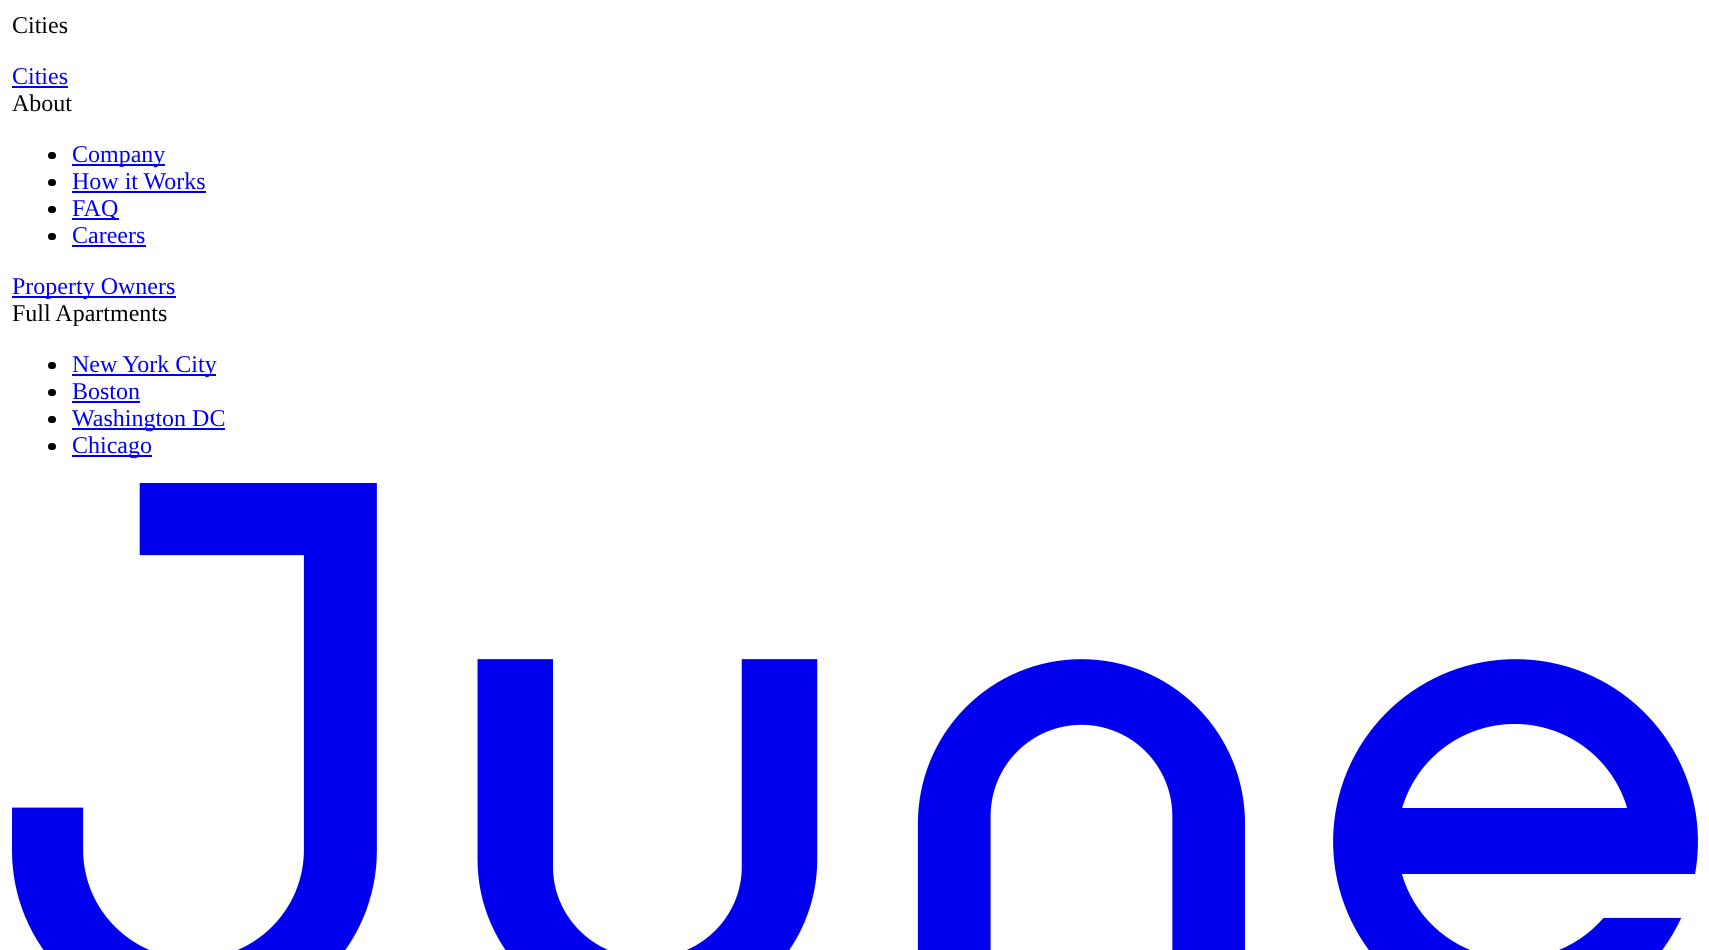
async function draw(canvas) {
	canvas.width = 1709;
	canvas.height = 950;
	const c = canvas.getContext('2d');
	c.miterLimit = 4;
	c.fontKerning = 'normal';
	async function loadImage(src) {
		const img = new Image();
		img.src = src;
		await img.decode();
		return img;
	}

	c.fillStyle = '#fff';
	c.fillRect(0, 0, 1709, 950);
	c.font = '24px Liberation Serif';
	c.fillStyle = '#000';
	c.fillText('Cities', 12, 33);
	c.fillStyle = '#00e';
	c.fillText('Cities', 12, 84);
	c.fillRect(12, 86, 56, 2);
	c.fillStyle = '#000';
	c.fillText('About', 12, 111);
	c.beginPath();
	c.roundRect(48, 152, 8, 7, 3.5);
	c.fill();
	c.fillStyle = '#00e';
	c.fillRect(72, 164, 93, 2);
	c.fillText('Company', 72, 162);
	c.fillStyle = '#000';
	c.beginPath();
	c.roundRect(48, 179, 8, 7, 3.5);
	c.fill();
	c.fillStyle = '#00e';
	c.fillText('How it Works', 72, 189);
	c.fillRect(72, 191, 134, 2);
	c.fillStyle = '#000';
	c.beginPath();
	c.roundRect(48, 206, 8, 7, 3.5);
	c.fill();
	c.fillStyle = '#00e';
	c.fillRect(72, 218, 47, 2);
	c.fillText('FAQ', 72, 216);
	c.fillStyle = '#000';
	c.beginPath();
	c.roundRect(48, 233, 8, 7, 3.5);
	c.fill();
	c.fillStyle = '#00e';
	c.fillText('Careers', 72, 243);
	c.fillRect(72, 245, 74, 2);
	c.fillRect(12, 296, 164, 2);
	c.fillText('Property Owners', 12, 294);
	c.fillStyle = '#000';
	c.fillText('Full Apartments', 12, 321);
	c.beginPath();
	c.roundRect(48, 362, 8, 7, 3.5);
	c.fill();
	c.fillStyle = '#00e';
	c.fillRect(72, 374, 144, 2);
	c.fillText('New York City', 72, 372);
	c.fillStyle = '#000';
	c.beginPath();
	c.roundRect(48, 389, 8, 7, 3.5);
	c.fill();
	c.fillStyle = '#00e';
	c.fillText('Boston', 72, 399);
	c.fillRect(72, 401, 68, 2);
	c.fillStyle = '#000';
	c.beginPath();
	c.roundRect(48, 416, 8, 7, 3.5);
	c.fill();
	c.fillStyle = '#00e';
	c.fillRect(72, 428, 153, 2);
	c.fillText('Washington DC', 72, 426);
	c.fillStyle = '#000';
	c.beginPath();
	c.roundRect(48, 443, 8, 7, 3.5);
	c.fill();
	c.fillStyle = '#00e';
	c.fillRect(72, 455, 80, 2);
	c.fillText('Chicago', 72, 453);
	c.drawImage(await loadImage('img1.png'), 12, 483, 1686, 467);
}

draw(document.querySelector('canvas'));
